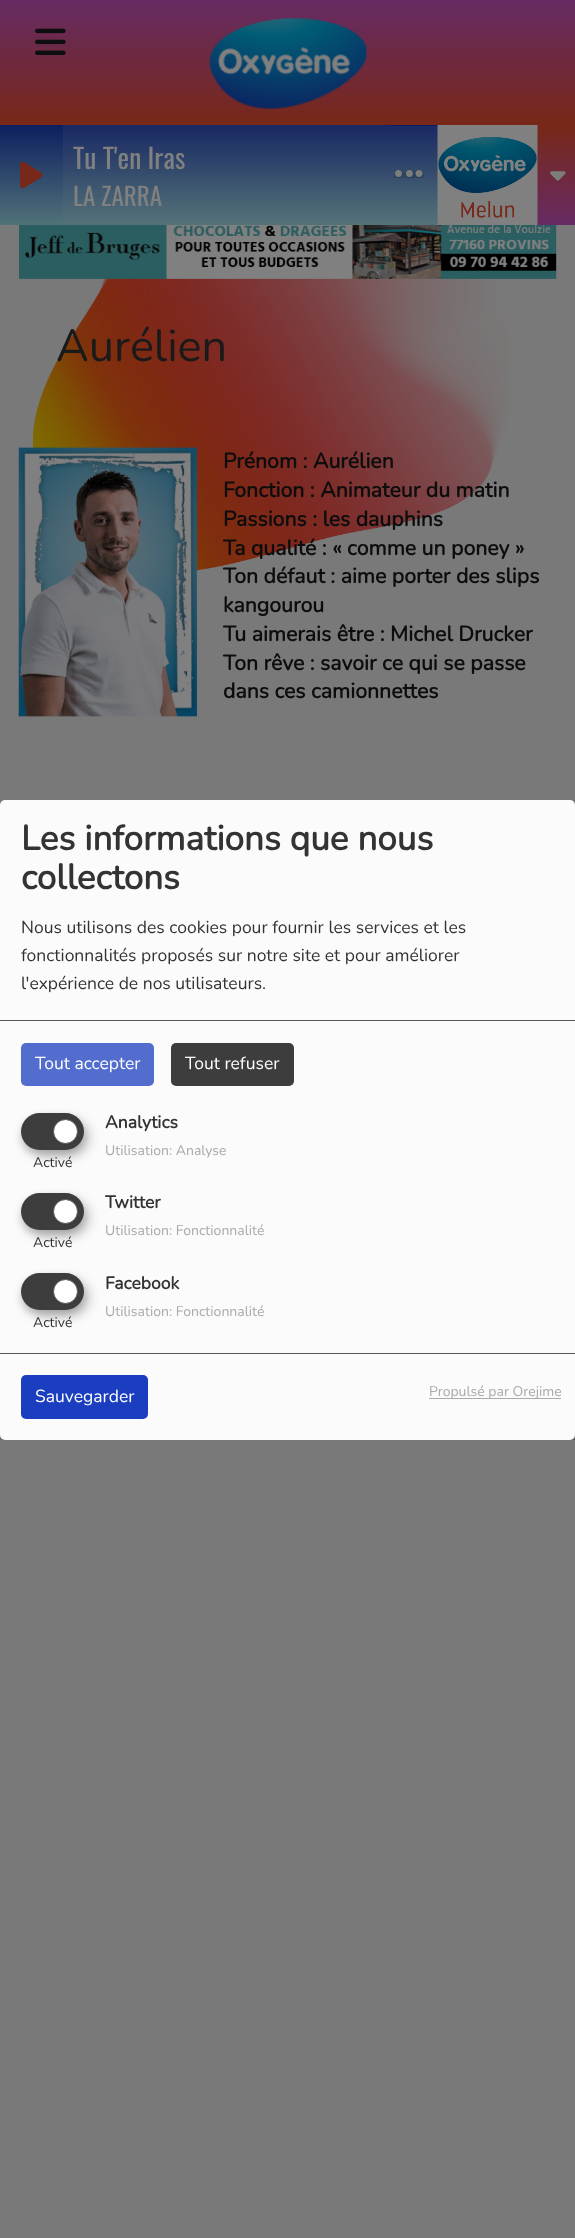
async function draw(canvas) {
	canvas.width = 575;
	canvas.height = 2238;
	const c = canvas.getContext('2d');
	c.miterLimit = 4;
	c.fontKerning = 'normal';
	async function loadImage(src) {
		const img = new Image();
		img.src = src;
		await img.decode();
		return img;
	}
	let gradient;

	c.fillStyle = '#797979';
	c.fillRect(0, 0, 575, 2238);
	c.drawImage(await loadImage('img1.png'), 33, 278, 476, 293);
	gradient = c.createLinearGradient(288, 0, 288, 125);
	gradient.addColorStop(0, '#662b63');
	gradient.addColorStop(1, '#782818');
	c.fillStyle = gradient;
	c.fillRect(0, 0, 575, 125);
	c.drawImage(await loadImage('img2.png'), 35, 28, 31, 27);
	c.drawImage(await loadImage('img3.png'), 209, 17, 158, 93);
	gradient = c.createLinearGradient(288, 125, 288, 225);
	gradient.addColorStop(0, '#0d1f60');
	gradient.addColorStop(1, '#507278');
	c.fillStyle = gradient;
	c.fillRect(0, 125, 438, 100);
	c.drawImage(await loadImage('img4.png'), 20, 161, 23, 28);
	c.fillStyle = '#8080801a';
	c.fillRect(63, 125, 327, 100);
	c.font = '27.5px Oswald';
	c.fillStyle = '#808080';
	c.fillText('Tu T\'en Iras', 73, 169);
	c.font = '25px Oswald';
	c.fillText('LA ZARRA', 73, 206);
	gradient = c.createLinearGradient(506, 125, 506, 225);
	gradient.addColorStop(0, '#782818');
	gradient.addColorStop(1, '#662b63');
	c.fillStyle = gradient;
	c.fillRect(537, 125, 38, 100);
	c.drawImage(await loadImage('img6.png'), 437, 125, 101, 100);
	c.drawImage(await loadImage('img8.png'), 19, 225, 538, 54);
	c.fillStyle = '#8080801a';
	c.fillRect(390, 126, 48, 100);
	c.drawImage(await loadImage('img5.png'), 394, 169, 30, 9);
	c.drawImage(await loadImage('img7.png'), 550, 171, 16, 10);
	c.font = '45px Nunito';
	c.fillStyle = '#1a1a1a';
	c.fillText('Aurélien', 56, 361);
	c.drawImage(await loadImage('img9.png'), 18, 447, 180, 270);
	c.font = 'bold 21.25px Nunito';
	c.fillStyle = '#0d0d0d';
	for (const [text, x, y] of [
		['Prénom : Aurélien', 223, 468],
		['Fonction : Animateur du matin', 223, 497],
		['Passions : les dauphins', 223, 526],
		['Ta qualité : « comme un poney »', 223, 555],
		['Ton défaut : aime porter des slips', 223, 583],
		['kangourou', 223, 612],
		['Tu aimerais être : Michel Drucker', 223, 641],
		['Ton rêve : savoir ce qui se passe', 223, 670],
		['dans ces camionnettes', 223, 698],
	]) {
		c.fillText(text, x, y);
	}
	c.save();
	c.beginPath();
	c.rect(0, 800, 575, 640);
	c.clip();
	c.fillStyle = '#00000030';
	c.filter = 'blur(6px)';
	c.beginPath();
	c.roundRect(6, 806, 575, 640, 5);
	c.fill();
	c.filter = 'none';
	c.fillStyle = '#00000033';
	c.filter = 'blur(4px)';
	c.beginPath();
	c.roundRect(0, 805, 575, 640, 5);
	c.fill();
	c.filter = 'none';
	c.restore();
	c.fillStyle = '#fbfbfb';
	c.beginPath();
	c.roundRect(0, 800, 575, 640, 5);
	c.fill();
	c.fillStyle = '#555';
	c.fillRect(0, 1020, 575, 1);
	c.font = 'bold 35px Nunito';
	c.fillStyle = '#333';
	c.fillText('Les informations que nous', 21, 850);
	c.fillText('collectons', 21, 889);
	c.font = '17.5px Nunito';
	for (const [text, x, y] of [
		['Nous utilisons des cookies pour fournir les services et les', 21, 933],
		['fonctionnalités proposés sur notre site et pour améliorer', 21, 961],
		['l\'expérience de nos utilisateurs.', 21, 989],
	]) {
		c.fillText(text, x, y);
	}
	c.fillStyle = '#526dce';
	c.beginPath();
	c.roundRect(21, 1043, 133, 43, 5);
	c.fill();
	c.fillStyle = '#fff';
	c.fillText('Tout accepter', 35, 1069);
	c.fillStyle = '#3e3d3d';
	c.beginPath();
	c.roundRect(171, 1043, 123, 43, 5);
	c.fill();
	c.fillStyle = '#fff';
	c.fillText('Tout refuser', 185, 1069);
	c.font = 'bold 17.5px Nunito';
	c.fillStyle = '#333';
	c.fillText('Analytics', 105, 1128);
	c.fillStyle = '#00000030';
	c.filter = 'blur(6px)';
	c.beginPath();
	c.roundRect(28, 1119, 62, 37, 18.5);
	c.fill();
	c.filter = 'none';
	c.fillStyle = '#00000033';
	c.filter = 'blur(4px)';
	c.beginPath();
	c.roundRect(21, 1118, 63, 37, 18.5);
	c.fill();
	c.filter = 'none';
	c.fillStyle = '#3e3d3d';
	c.beginPath();
	c.roundRect(21, 1113, 63, 37, 18.5);
	c.fill();
	c.fillStyle = '#fff';
	c.beginPath();
	c.arc(65.5, 1131.5, 12, 0, 2 * Math.PI);
	c.fill();
	c.strokeStyle = '#555';
	c.stroke();
	c.font = '14px Nunito';
	c.fillStyle = '#333';
	c.fillText('Activé', 33, 1167);
	c.fillStyle = '#aaa';
	c.fillText('Utilisation: Analyse', 105, 1155);
	c.font = 'bold 17.5px Nunito';
	c.fillStyle = '#333';
	c.fillText('Twitter', 105, 1208);
	c.fillStyle = '#00000030';
	c.filter = 'blur(6px)';
	c.beginPath();
	c.roundRect(28, 1199, 62, 37, 18.5);
	c.fill();
	c.filter = 'none';
	c.fillStyle = '#00000033';
	c.filter = 'blur(4px)';
	c.beginPath();
	c.roundRect(21, 1198, 63, 37, 18.5);
	c.fill();
	c.filter = 'none';
	c.fillStyle = '#3e3d3d';
	c.beginPath();
	c.roundRect(21, 1193, 63, 37, 18.5);
	c.fill();
	c.fillStyle = '#fff';
	c.beginPath();
	c.arc(65.5, 1211.5, 12, 0, 2 * Math.PI);
	c.fill();
	c.stroke();
	c.font = '14px Nunito';
	c.fillStyle = '#333';
	c.fillText('Activé', 33, 1247);
	c.fillStyle = '#aaa';
	c.fillText('Utilisation: Fonctionnalité', 105, 1235);
	c.font = 'bold 17.5px Nunito';
	c.fillStyle = '#333';
	c.fillText('Facebook', 105, 1289);
	c.fillStyle = '#00000030';
	c.filter = 'blur(6px)';
	c.beginPath();
	c.roundRect(28, 1279, 62, 37, 18.5);
	c.fill();
	c.filter = 'none';
	c.fillStyle = '#00000033';
	c.filter = 'blur(4px)';
	c.beginPath();
	c.roundRect(21, 1278, 63, 37, 18.5);
	c.fill();
	c.filter = 'none';
	c.fillStyle = '#3e3d3d';
	c.beginPath();
	c.roundRect(21, 1273, 63, 37, 18.5);
	c.fill();
	c.fillStyle = '#fff';
	c.beginPath();
	c.arc(65.5, 1291.5, 12, 0, 2 * Math.PI);
	c.fill();
	c.stroke();
	c.font = '14px Nunito';
	c.fillStyle = '#333';
	c.fillText('Activé', 33, 1327);
	c.fillStyle = '#aaa';
	c.fillText('Utilisation: Fonctionnalité', 105, 1316);
	c.fillStyle = '#555';
	c.fillRect(0, 1353, 575, 1);
	c.fillStyle = '#1a3ebf';
	c.beginPath();
	c.roundRect(21, 1375, 127, 44, 5);
	c.fill();
	c.font = '17.5px Nunito';
	c.fillStyle = '#fff';
	c.fillText('Sauvegarder', 35, 1402);
	c.fillStyle = '#aaa';
	c.fillRect(429, 1398, 132, 1);
	c.font = '14px Nunito';
	c.fillText('Propulsé par Orejime', 429, 1396);
}

draw(document.querySelector('canvas'));
